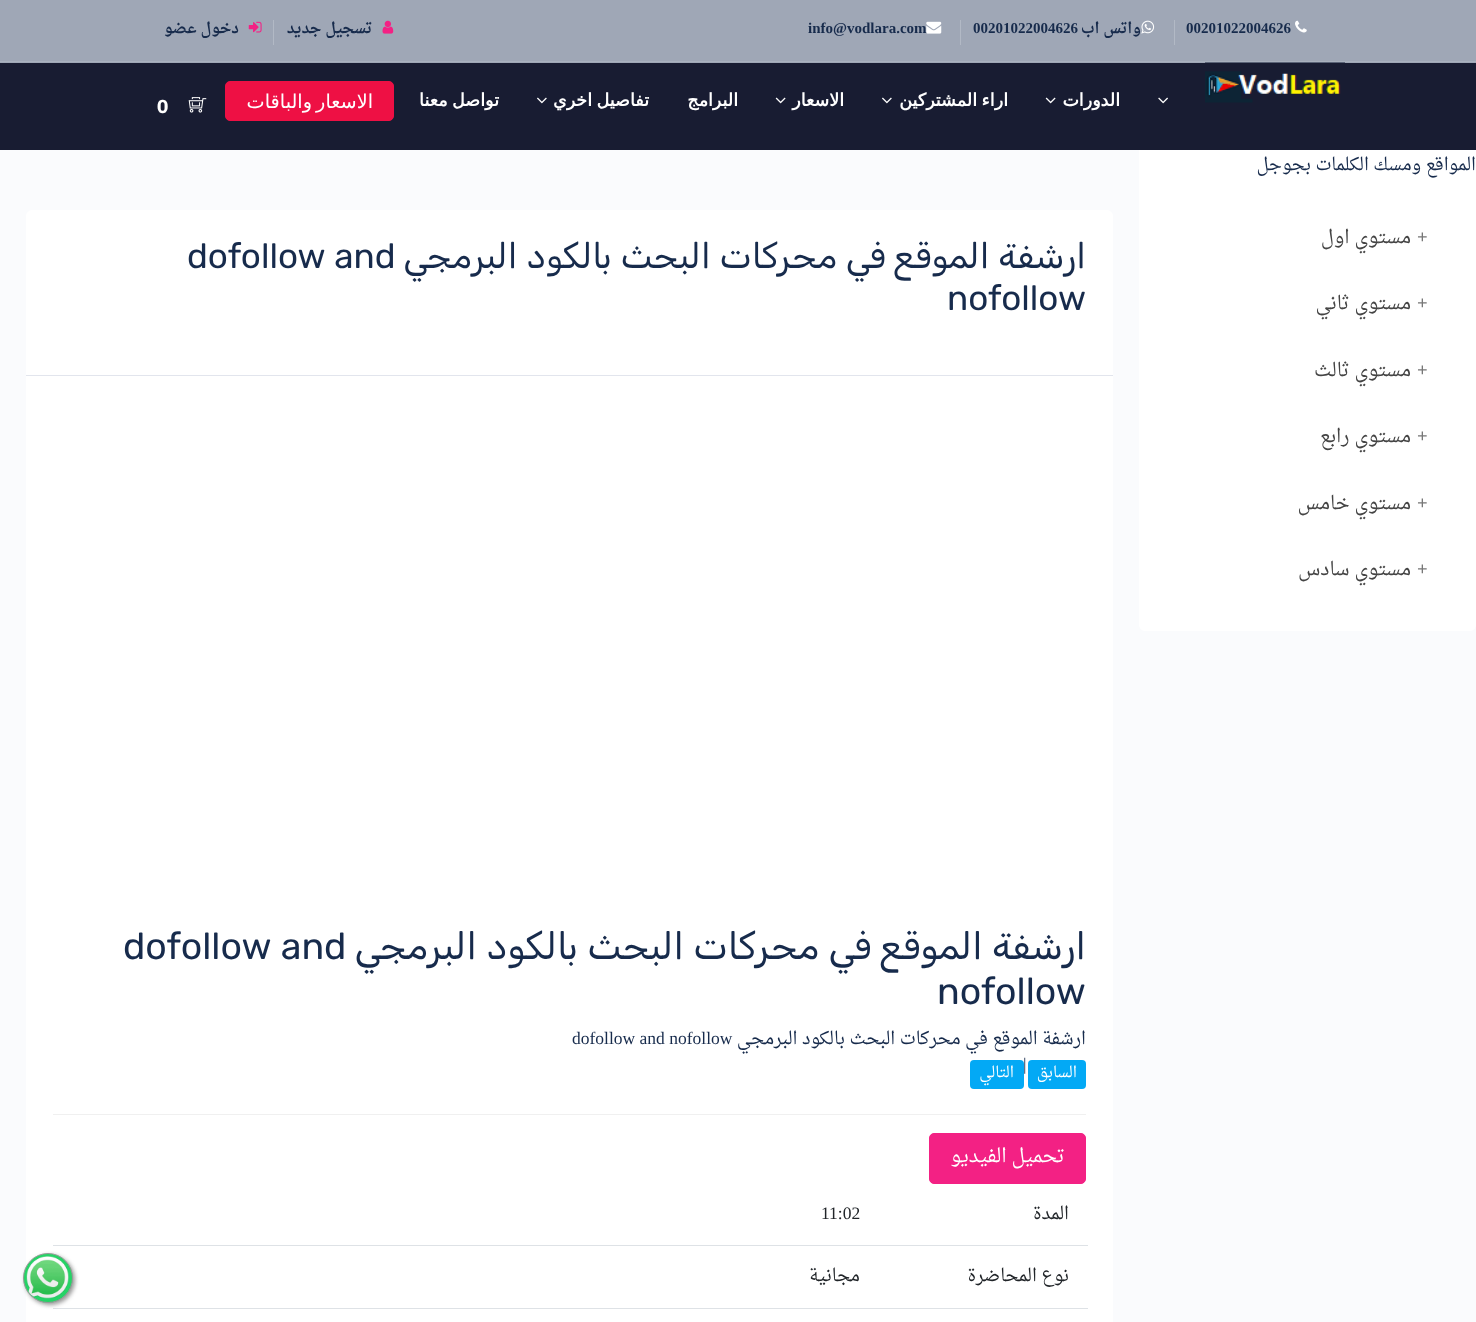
async function draw(canvas) {
	canvas.width = 1476;
	canvas.height = 1322;
	const c = canvas.getContext('2d');
	c.miterLimit = 4;
	c.fontKerning = 'normal';
	async function loadImage(src) {
		const img = new Image();
		img.src = src;
		await img.decode();
		return img;
	}

	c.fillStyle = '#fafbfd';
	c.fillRect(0, 0, 1476, 1322);
	c.fillStyle = '#fff';
	c.beginPath();
	c.roundRect(1139, 126, 337, 505, 6);
	c.fill();
	c.fillStyle = '#181c32';
	c.fillRect(0, 63, 1476, 87);
	c.drawImage(await loadImage('img6.png'), 1205, 62, 140, 43);
	c.fillStyle = '#172b4c66';
	c.fillRect(0, 0, 1476, 63);
	c.fillStyle = '#a9b1be';
	c.fillRect(0, 61, 1476, 1);
	c.drawImage(await loadImage('img1.png'), 1295, 20, 12, 13);
	c.font = 'bold 15px Liberation Serif';
	c.fillStyle = '#172b4c';
	c.fillText('00201022004626', 1186, 33);
	c.fillStyle = '#b2b9c5';
	c.fillRect(1174, 20, 1, 25);
	c.drawImage(await loadImage('img2.png'), 1141, 20, 14, 14);
	c.direction = 'rtl';
	c.font = 'bold 15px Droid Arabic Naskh';
	c.fillStyle = '#172b4c';
	c.fillText('واتس اب', 1141, 33);
	c.direction = 'ltr';
	c.font = 'bold 15px Liberation Serif';
	c.fillText('00201022004626', 973, 33);
	c.fillStyle = '#b2b9c5';
	c.fillRect(960, 20, 1, 25);
	c.drawImage(await loadImage('img3.png'), 926, 21, 16, 13);
	c.fillStyle = '#172b4c';
	c.fillText('info@vodlara.com', 808, 33);
	c.drawImage(await loadImage('img4.png'), 382, 20, 12, 14);
	c.direction = 'rtl';
	c.font = 'bold 15px Droid Arabic Naskh';
	c.fillText('تسجيل جديد', 372, 33);
	c.fillStyle = '#b2b9c5';
	c.fillRect(273, 20, 1, 25);
	c.drawImage(await loadImage('img5.png'), 248, 21, 14, 12);
	c.fillStyle = '#172b4c';
	c.fillText('دخول عضو', 239, 33);
	c.drawImage(await loadImage('img7.png'), 1158, 97, 10, 7);
	c.font = 'bold 17.5px DejaVu Sans';
	c.fillStyle = '#fff';
	c.fillText('الدورات', 1120, 106);
	c.drawImage(await loadImage('img8.png'), 1045, 97, 11, 7);
	c.wordSpacing = '-1px';
	c.fillText('اراء المشتركين', 1008, 106);
	c.drawImage(await loadImage('img9.png'), 882, 97, 10, 7);
	c.wordSpacing = '0px';
	c.fillText('الاسعار', 844, 106);
	c.drawImage(await loadImage('img8.png'), 775, 97, 11, 7);
	c.fillText('البرامج', 738, 106);
	c.wordSpacing = '-1px';
	c.fillText('تفاصيل اخري', 649, 106);
	c.drawImage(await loadImage('img9.png'), 537, 97, 10, 7);
	c.fillText('تواصل معنا', 499, 106);
	c.fillStyle = '#ee1044';
	c.beginPath();
	c.roundRect(225.5, 81.5, 168, 39, 4.5);
	c.fill();
	c.strokeStyle = '#ee1044';
	c.stroke();
	c.wordSpacing = '-2px';
	c.font = '19.25px DejaVu Sans';
	c.fillStyle = '#fff';
	c.fillText('الاسعار والباقات', 373, 108);
	c.drawImage(await loadImage('img10.png'), 188, 97, 19, 16);
	c.wordSpacing = '0px';
	c.direction = 'ltr';
	c.font = 'bold 18.75px IBM Plex Sans';
	c.fillText('0', 157, 113);
	c.direction = 'rtl';
	c.font = '17.5px Droid Arabic Naskh';
	c.fillStyle = '#172b4c';
	c.fillText('المواقع ومسك الكلمات بجوجل', 1476, 170);
	c.direction = 'ltr';
	c.font = 'bold 18.75px Liberation Serif';
	c.fillStyle = '#777';
	c.fillText('+', 1417, 243);
	c.direction = 'rtl';
	c.font = '18.75px Droid Arabic Naskh';
	c.fillStyle = '#444';
	c.fillText('مستوي اول', 1411, 243);
	c.direction = 'ltr';
	c.font = 'bold 18.75px Liberation Serif';
	c.fillStyle = '#777';
	c.fillText('+', 1417, 309);
	c.direction = 'rtl';
	c.font = '18.75px Droid Arabic Naskh';
	c.fillStyle = '#444';
	c.fillText('مستوي ثاني', 1411, 309);
	c.direction = 'ltr';
	c.font = 'bold 18.75px Liberation Serif';
	c.fillStyle = '#777';
	c.fillText('+', 1417, 376);
	c.direction = 'rtl';
	c.font = '18.75px Droid Arabic Naskh';
	c.fillStyle = '#444';
	c.fillText('مستوي ثالث', 1411, 376);
	c.direction = 'ltr';
	c.font = 'bold 18.75px Liberation Serif';
	c.fillStyle = '#777';
	c.fillText('+', 1417, 442);
	c.direction = 'rtl';
	c.font = '18.75px Droid Arabic Naskh';
	c.fillStyle = '#444';
	c.fillText('مستوي رابع', 1411, 442);
	c.direction = 'ltr';
	c.font = 'bold 18.75px Liberation Serif';
	c.fillStyle = '#777';
	c.fillText('+', 1417, 509);
	c.direction = 'rtl';
	c.font = '18.75px Droid Arabic Naskh';
	c.fillStyle = '#444';
	c.fillText('مستوي خامس', 1411, 509);
	c.direction = 'ltr';
	c.font = 'bold 18.75px Liberation Serif';
	c.fillStyle = '#777';
	c.fillText('+', 1417, 575);
	c.direction = 'rtl';
	c.font = '18.75px Droid Arabic Naskh';
	c.fillStyle = '#444';
	c.fillText('مستوي سادس', 1411, 575);
	c.fillStyle = '#fff';
	c.beginPath();
	c.roundRect(26, 210, 1087, 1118, 6);
	c.fill();
	c.fillStyle = '#e2e5ed';
	c.fillRect(26, 375, 1087, 1);
	c.font = '35px Rubik';
	c.fillStyle = '#172b4c';
	c.fillText('ارشفة الموقع في محركات البحث بالكود البرمجي', 1086, 268);
	c.direction = 'ltr';
	c.fillText('dofollow and', 187, 268);
	c.fillText('nofollow', 947, 310);
	c.direction = 'rtl';
	c.font = '37.5px Rubik';
	c.fillText('ارشفة الموقع في محركات البحث بالكود البرمجي', 1086, 959);
	c.direction = 'ltr';
	c.fillText('dofollow and', 123, 959);
	c.fillText('nofollow', 937, 1004);
	c.direction = 'rtl';
	c.font = '17.5px Droid Arabic Naskh';
	c.fillText('ارشفة الموقع في محركات البحث بالكود البرمجي', 1086, 1044);
	c.direction = 'ltr';
	c.font = '17.5px Liberation Serif';
	c.fillText('dofollow and nofollow', 572, 1044);
	c.fillStyle = '#03a9f5';
	c.beginPath();
	c.roundRect(1028, 1060, 58, 29, 4);
	c.fill();
	c.direction = 'rtl';
	c.font = '15px Droid Arabic Naskh';
	c.fillStyle = '#fff';
	c.fillText('السابق', 1077, 1077);
	c.direction = 'ltr';
	c.font = '17.5px Liberation Serif';
	c.fillStyle = '#172b4c';
	c.fillText('|', 1023, 1070);
	c.fillStyle = '#03a9f5';
	c.beginPath();
	c.roundRect(970, 1060, 54, 29, 4);
	c.fill();
	c.direction = 'rtl';
	c.font = '15px Droid Arabic Naskh';
	c.fillStyle = '#fff';
	c.fillText('التالي', 1014, 1077);
	c.fillStyle = '#f0f0f0';
	c.fillRect(53, 1114, 1033, 1);
	c.fillStyle = '#f32184';
	c.beginPath();
	c.roundRect(929.5, 1133.5, 156, 50, 4.5);
	c.fill();
	c.strokeStyle = '#f32184';
	c.stroke();
	c.font = '19.25px Droid Arabic Naskh';
	c.fillStyle = '#fff';
	c.fillText('تحميل الفيديو', 1065, 1162);
	c.font = '17.5px Droid Arabic Naskh';
	c.fillStyle = '#212529';
	c.fillText('المدة', 1069, 1219);
	c.fillStyle = '#dee2e6';
	c.fillRect(53, 1245, 1035, 1);
	c.direction = 'ltr';
	c.font = '17.5px Liberation Serif';
	c.fillStyle = '#212529';
	c.fillText('11:02', 821, 1219);
	c.direction = 'rtl';
	c.font = '17.5px Droid Arabic Naskh';
	c.fillText('نوع المحاضرة', 1069, 1281);
	c.fillStyle = '#dee2e6';
	c.fillRect(53, 1308, 1035, 1);
	c.fillStyle = '#212529';
	c.fillText('مجانية', 860, 1281);
	c.fillStyle = '#999';
	c.filter = 'blur(2px)';
	c.beginPath();
	c.roundRect(25, 1255, 50, 50, 25);
	c.fill();
	c.filter = 'none';
	c.fillStyle = '#25d366';
	c.beginPath();
	c.arc(48, 1278, 24.5, 0, 2 * Math.PI);
	c.fill();
	c.strokeStyle = '#999';
	c.stroke();
	c.drawImage(await loadImage('img11.png'), 26, 1256, 43, 43);
}

draw(document.querySelector('canvas'));
